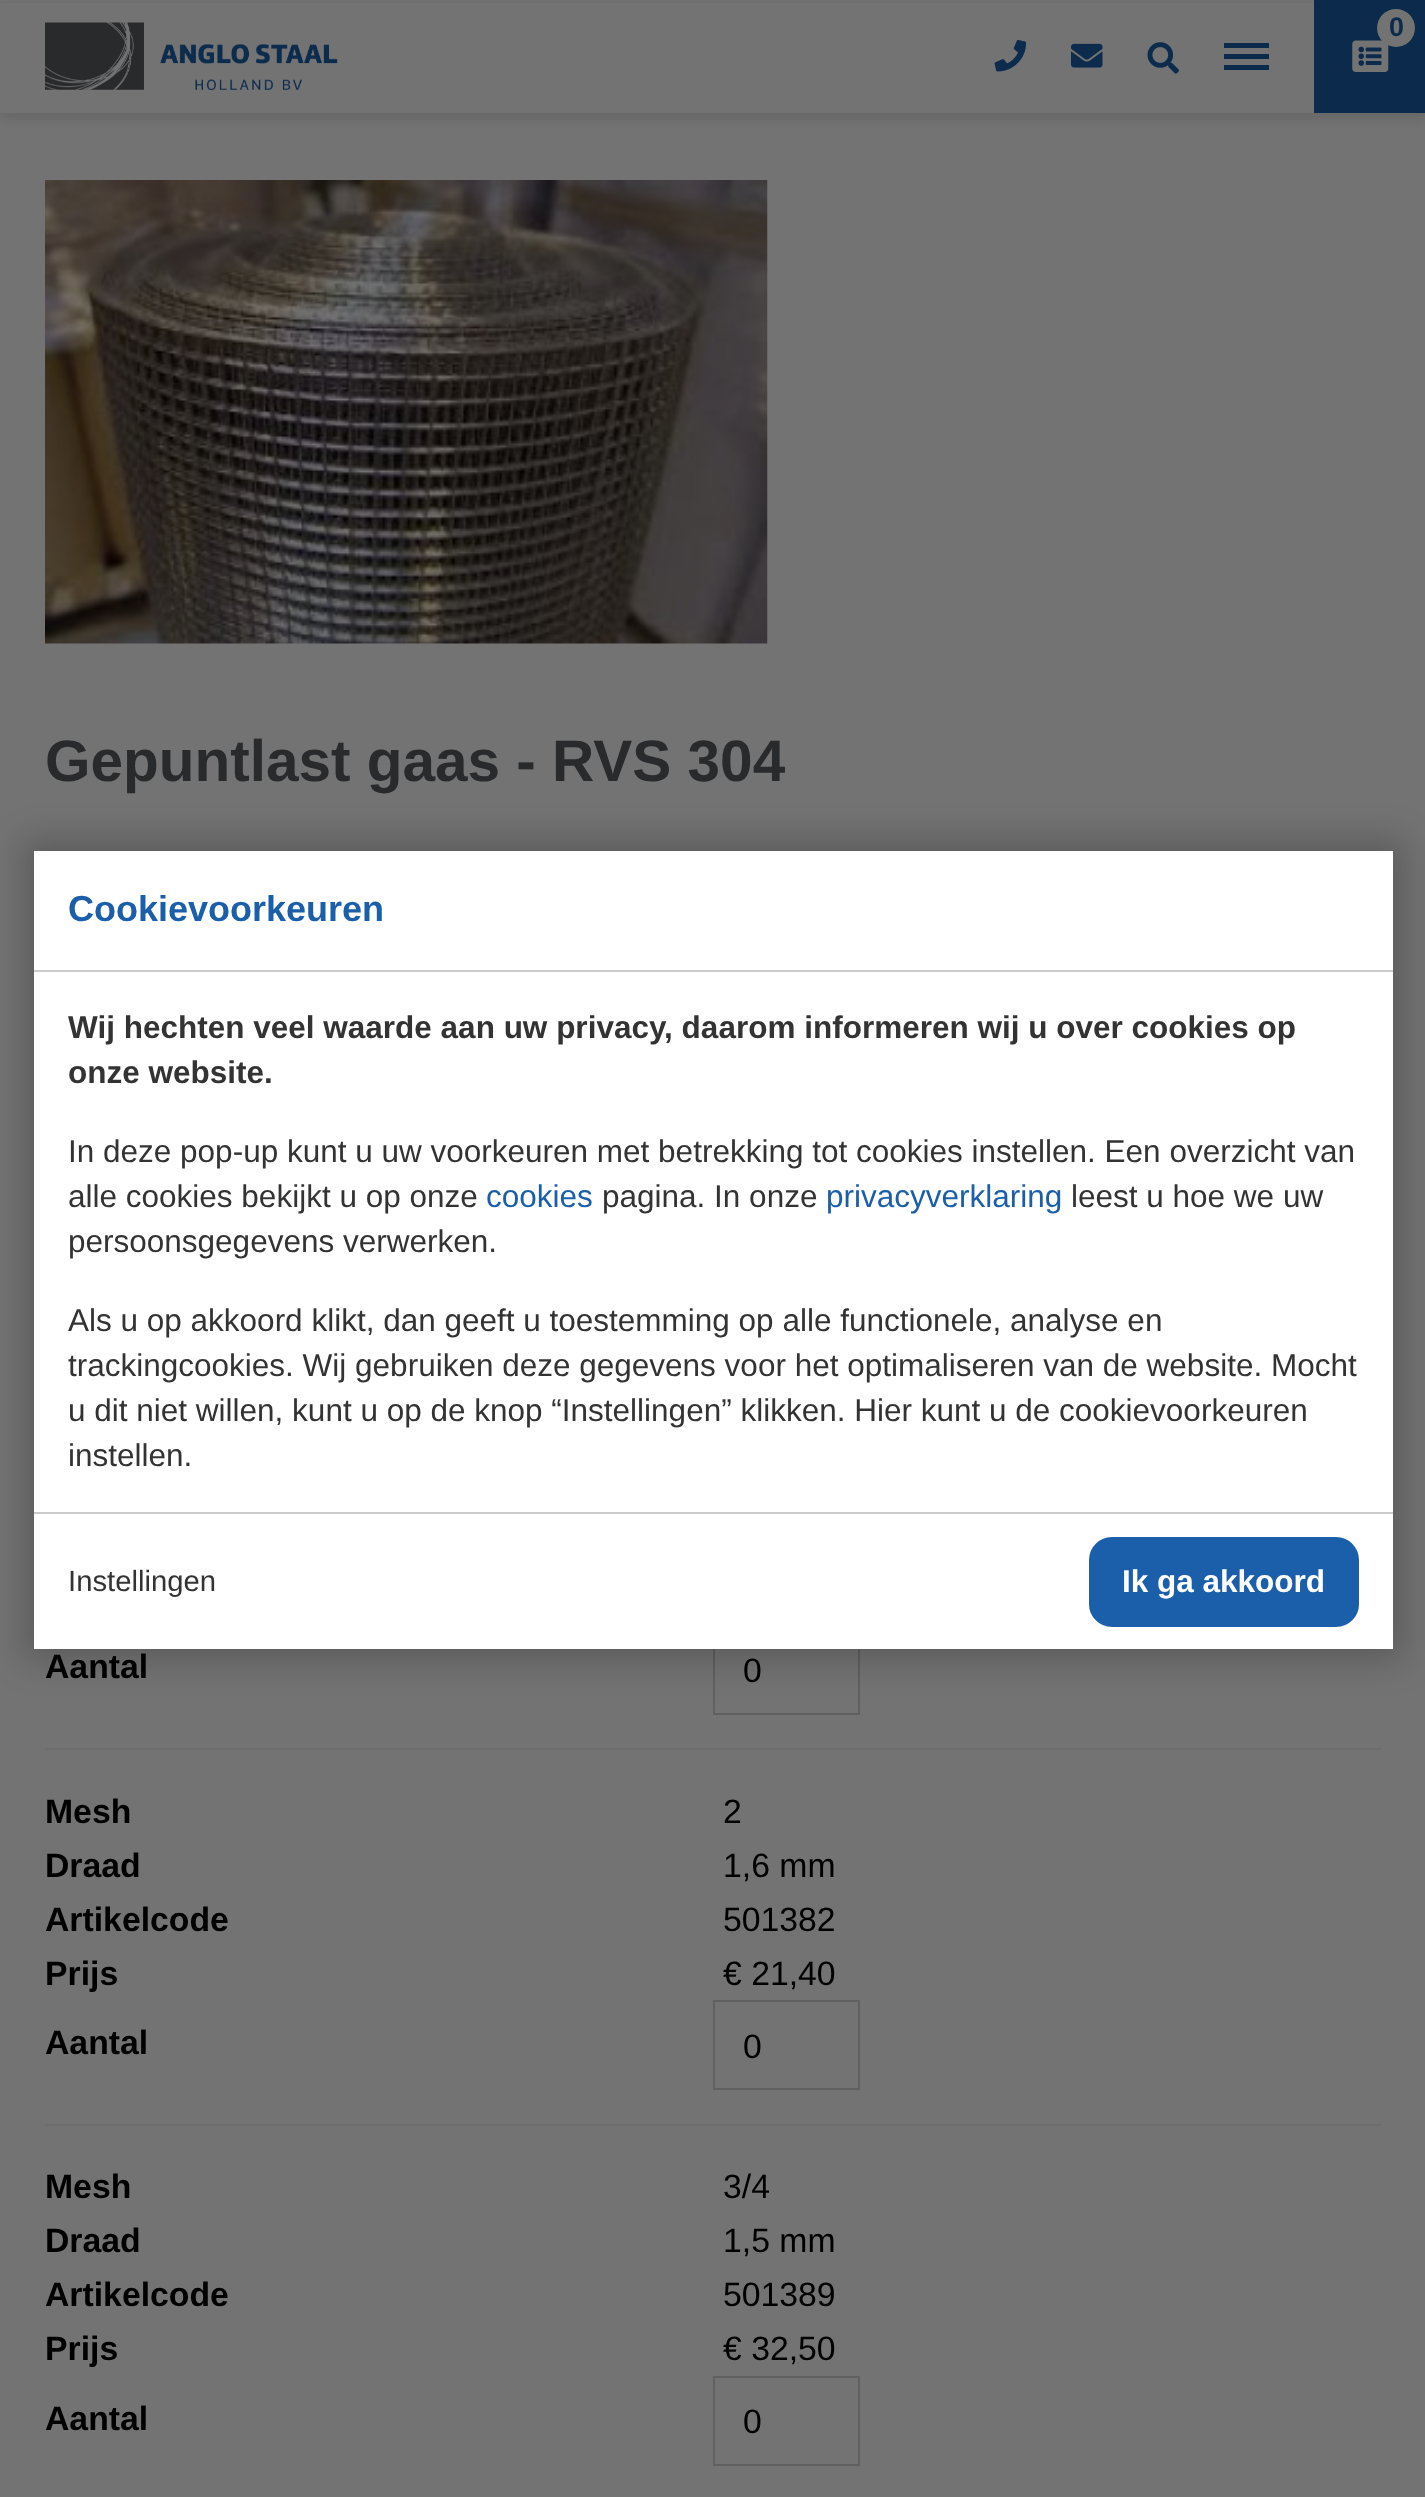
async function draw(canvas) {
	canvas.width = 1425;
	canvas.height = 2497;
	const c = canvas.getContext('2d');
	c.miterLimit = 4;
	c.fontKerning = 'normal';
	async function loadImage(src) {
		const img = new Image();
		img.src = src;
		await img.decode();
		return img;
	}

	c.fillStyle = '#737373';
	c.fillRect(0, 0, 1425, 2497);
	c.fillStyle = '#0000001a';
	c.filter = 'blur(5.5px)';
	c.beginPath();
	c.rect(0, 7, 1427, 112);
	c.fill();
	c.filter = 'none';
	c.fillStyle = '#737373';
	c.fillRect(0, 3, 1314, 110);
	c.drawImage(await loadImage('img1.png'), 45, 22, 293, 68);
	c.drawImage(await loadImage('img2.png'), 994, 40, 33, 32);
	c.drawImage(await loadImage('img3.png'), 1071, 43, 32, 25);
	c.drawImage(await loadImage('img4.png'), 1147, 42, 32, 32);
	for (const [x, y, w, h, color] of [
		[1224, 43, 45, 5, '#0c2b4c'],
		[1224, 54, 45, 5, '#0c2b4c'],
		[1224, 65, 45, 5, '#0c2b4c'],
		[1314, 0, 111, 113, '#0c2b4c'],
	]) {
		c.fillStyle = color;
		c.fillRect(x, y, w, h);
	}
	c.drawImage(await loadImage('img5.png'), 1352, 40, 37, 32);
	c.fillStyle = '#737373';
	c.beginPath();
	c.arc(1396, 28, 19, 0, 2 * Math.PI);
	c.fill();
	c.font = 'bold 27px Liberation Sans';
	c.fillStyle = '#0c2b4c';
	c.fillText('0', 1389, 36);
	c.drawImage(await loadImage('img6.png'), 45, 180, 723, 464);
	c.font = 'bold 58.5px Liberation Sans';
	c.fillStyle = '#292a2c';
	c.fillText('Gepuntlast gaas - RVS 304', 45, 781);
	c.font = 'bold 33.75px Liberation Sans';
	c.fillStyle = '#000';
	c.fillText('Aantal', 45, 1678);
	c.strokeStyle = '#606060';
	c.lineWidth = 2;
	c.strokeRect(714, 1626, 145, 88);
	c.font = '33.75px Liberation Sans';
	c.fillText('0', 743, 1682);
	c.fillStyle = '#6d6d6d';
	c.fillRect(45, 1748, 1337, 2);
	c.font = 'bold 33.75px Liberation Sans';
	c.fillStyle = '#000';
	c.fillText('Mesh', 45, 1823);
	c.font = '33.75px Liberation Sans';
	c.fillText('2', 723, 1823);
	c.font = 'bold 33.75px Liberation Sans';
	c.fillText('Draad', 45, 1877);
	c.font = '33.75px Liberation Sans';
	c.fillText('1,6 mm', 723, 1877);
	c.font = 'bold 33.75px Liberation Sans';
	c.fillText('Artikelcode', 45, 1931);
	c.font = '33.75px Liberation Sans';
	c.fillText('501382', 723, 1931);
	c.font = 'bold 33.75px Liberation Sans';
	c.fillText('Prijs', 45, 1985);
	c.font = '33.75px Liberation Sans';
	c.fillText('€ 21,40', 723, 1985);
	c.font = 'bold 33.75px Liberation Sans';
	c.fillText('Aantal', 45, 2054);
	c.strokeRect(714, 2001, 145, 88);
	c.font = '33.75px Liberation Sans';
	c.fillText('0', 743, 2058);
	c.fillStyle = '#6d6d6d';
	c.fillRect(45, 2124, 1337, 2);
	c.font = 'bold 33.75px Liberation Sans';
	c.fillStyle = '#000';
	c.fillText('Mesh', 45, 2198);
	c.font = '33.75px Liberation Sans';
	c.fillText('3/4', 723, 2198);
	c.font = 'bold 33.75px Liberation Sans';
	c.fillText('Draad', 45, 2252);
	c.font = '33.75px Liberation Sans';
	c.fillText('1,5 mm', 723, 2252);
	c.font = 'bold 33.75px Liberation Sans';
	c.fillText('Artikelcode', 45, 2306);
	c.font = '33.75px Liberation Sans';
	c.fillText('501389', 723, 2306);
	c.font = 'bold 33.75px Liberation Sans';
	c.fillText('Prijs', 45, 2360);
	c.font = '33.75px Liberation Sans';
	c.fillText('€ 32,50', 723, 2360);
	c.font = 'bold 33.75px Liberation Sans';
	c.fillText('Aantal', 45, 2430);
	c.strokeRect(714, 2377, 145, 88);
	c.font = '33.75px Liberation Sans';
	c.fillText('0', 743, 2433);
	c.fillStyle = '#00000033';
	c.filter = 'blur(17px)';
	c.beginPath();
	c.rect(23, 839, 1381, 822);
	c.fill();
	c.filter = 'none';
	c.fillStyle = '#fff';
	c.fillRect(34, 851, 1359, 798);
	c.fillStyle = '#ccc';
	c.fillRect(34, 970, 1359, 2);
	c.font = 'bold 36px Liberation Sans';
	c.fillStyle = '#1b5faa';
	c.fillText('Cookievoorkeuren', 68, 921);
	c.font = 'bold 31.5px Liberation Sans';
	c.fillStyle = '#333';
	c.fillText('Wij hechten veel waarde aan uw privacy, daarom informeren wij u over cookies op', 68, 1038);
	c.fillText('onze website.', 68, 1083);
	c.font = '31.5px Liberation Sans';
	c.fillText('In deze pop-up kunt u uw voorkeuren met betrekking tot cookies instellen. Een overzicht van', 68, 1162);
	c.fillText('alle cookies bekijkt u op onze', 68, 1207);
	c.fillStyle = '#1b5faa';
	c.fillText('cookies', 486, 1207);
	c.fillStyle = '#333';
	c.fillText('pagina. In onze', 602, 1207);
	c.fillStyle = '#1b5faa';
	c.fillText('privacyverklaring', 826, 1207);
	c.fillStyle = '#333';
	for (const [text, x, y] of [
		['leest u hoe we uw', 1071, 1207],
		['persoonsgegevens verwerken.', 68, 1252],
		['Als u op akkoord klikt, dan geeft u toestemming op alle functionele, analyse en', 68, 1331],
		['trackingcookies. Wij gebruiken deze gegevens voor het optimaliseren van de website. Mocht', 68, 1376],
		['u dit niet willen, kunt u op de knop “Instellingen” klikken. Hier kunt u de cookievoorkeuren', 68, 1421],
		['instellen.', 68, 1466],
	]) {
		c.fillText(text, x, y);
	}
	c.fillStyle = '#ccc';
	c.fillRect(34, 1512, 1359, 2);
	c.font = '29.25px Liberation Sans';
	c.fillStyle = '#333';
	c.fillText('Instellingen', 68, 1591);
	c.fillStyle = '#1b5faa';
	c.beginPath();
	c.roundRect(1090, 1538, 268, 88, 22);
	c.fill();
	c.strokeStyle = '#1b5faa';
	c.stroke();
	c.font = 'bold 31.5px Liberation Sans';
	c.fillStyle = '#fff';
	c.fillText('Ik ga akkoord', 1122, 1592);
}

draw(document.querySelector('canvas'));
